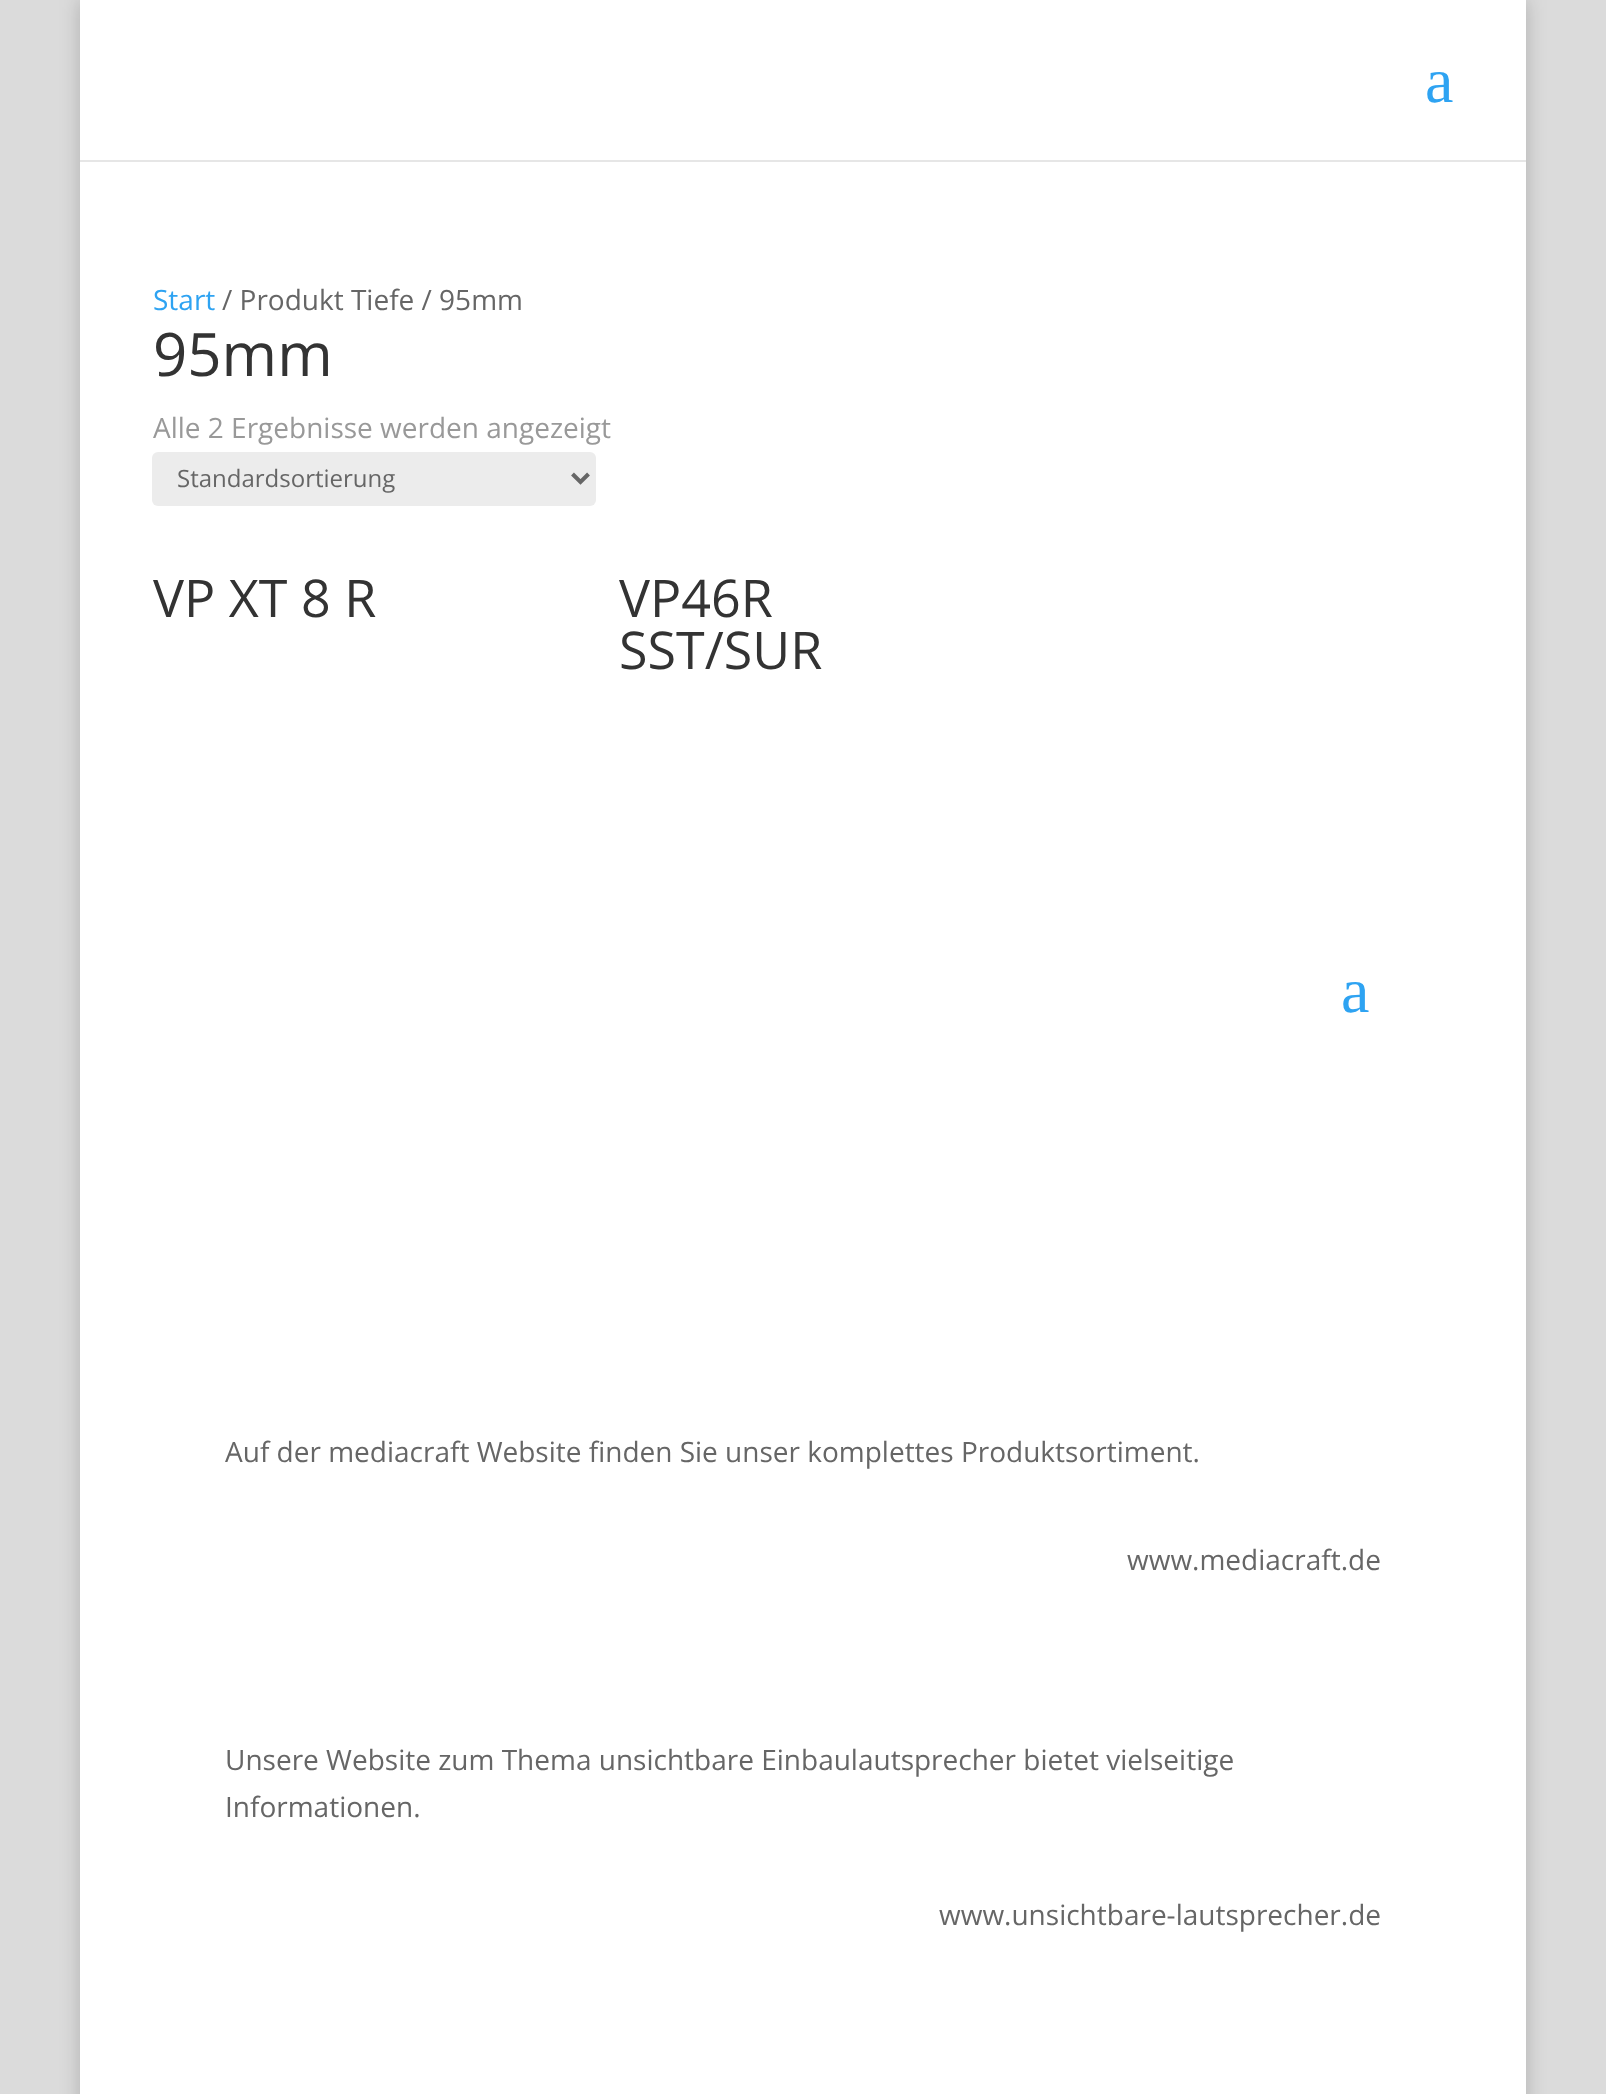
<svg xmlns="http://www.w3.org/2000/svg" width="1606" height="2094">
<rect width="100%" height="100%" fill="#dbdbdb"/>
<rect x="80" width="1446" height="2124" fill="#00000033" filter="blur(10px)"/>
<rect x="80" y="160" width="1446" height="2" fill="#e6e6e6"/>
<rect x="80" width="1446" height="160" fill="#fff"/>
<text x="1425" y="102" style="font-family:Liberation Serif;font-size:64px;fill:#2ea3f2">a</text>
<rect x="80" y="162" width="1446" height="1932" fill="#fff"/>
<text x="153" y="310" style="font-family:Open Sans;font-size:28px;fill:#2ea3f2">Start</text>
<text x="222" y="310" style="font-family:Open Sans;font-size:28px;fill:#666">/ Produkt Tiefe / 95mm</text>
<text x="153" y="376" style="font-family:Open Sans;font-size:60px;fill:#333">95mm</text>
<text x="153" y="438" style="font-family:Open Sans;font-size:28px;fill:#999">Alle 2 Ergebnisse werden angezeigt</text>
<rect x="152" y="452" width="444" height="54" rx="6" fill="#ececec"/>
<path d="M572.5 474l8 8l8-8" fill="none" stroke="#666" stroke-width="4"/>
<text x="177" y="487" style="font-family:Open Sans;font-size:24px;fill:#666">Standardsortierung</text>
<text x="153" y="617" style="font-family:Open Sans;font-size:52px;fill:#333">VP XT 8 R</text>
<text x="619" y="617" style="font-family:Open Sans;font-size:52px;fill:#333">VP46R</text>
<text x="619" y="669" style="font-family:Open Sans;font-size:52px;fill:#333">SST/SUR</text>
<text x="1341" y="1012" style="font-family:Liberation Serif;font-size:64px;fill:#2ea3f2">a</text>
<text x="225" y="1462" style="font-family:Open Sans;font-size:28px;fill:#666">Auf der mediacraft Website finden Sie unser komplettes Produktsortiment.</text>
<text x="1127" y="1570" style="font-family:Open Sans;font-size:28px;fill:#666">www.mediacraft.de</text>
<text x="225" y="1770" style="font-family:Open Sans;font-size:28px;fill:#666">Unsere Website zum Thema unsichtbare Einbaulautsprecher bietet vielseitige</text>
<text x="225" y="1817" style="font-family:Open Sans;font-size:28px;fill:#666">Informationen.</text>
<text x="939" y="1925" style="font-family:Open Sans;font-size:28px;fill:#666">www.unsichtbare-lautsprecher.de</text>
</svg>
